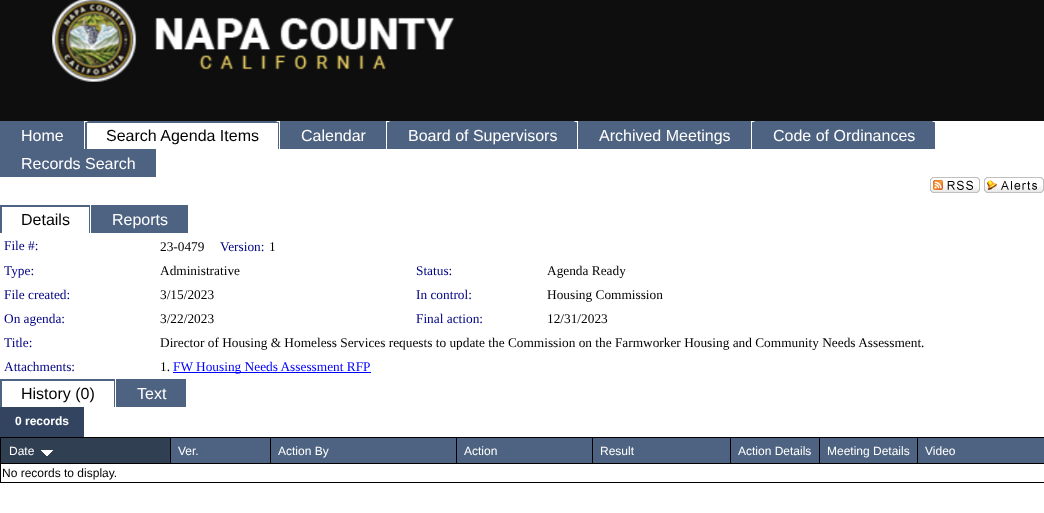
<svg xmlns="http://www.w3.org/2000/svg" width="1044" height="513">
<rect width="100%" height="100%" fill="#fff"/>
<rect width="1044" height="121" fill="#0e0e0e"/>
<image x="52" y="0" width="403" height="82" href="media/1.png"/>
<rect y="121" width="84" height="28" fill="#4e6381"/>
<text x="21" y="141" style="font-family:Liberation Sans;font-size:16px;fill:#fff">Home</text>
<image x="85" y="121" width="194" height="28" href="media/2.png"/>
<rect x="87" y="123" width="191" height="26" fill="#fff"/>
<text x="106" y="141" style="font-family:Liberation Sans;font-size:16px;fill:#000">Search Agenda Items</text>
<rect x="280" y="121" width="106" height="28" fill="#4e6381"/>
<text x="301" y="141" style="font-family:Liberation Sans;font-size:16px;fill:#fff">Calendar</text>
<image x="387" y="121" width="190" height="28" href="media/3.png"/>
<text x="408" y="141" style="font-family:Liberation Sans;font-size:16px;fill:#fff">Board of Supervisors</text>
<rect x="578" y="121" width="173" height="28" fill="#4e6381"/>
<text x="599" y="141" style="font-family:Liberation Sans;font-size:16px;fill:#fff">Archived Meetings</text>
<image x="752" y="121" width="183" height="28" href="media/4.png"/>
<text x="773" y="141" style="font-family:Liberation Sans;font-size:16px;fill:#fff">Code of Ordinances</text>
<rect y="149" width="156" height="28" fill="#4e6381"/>
<text x="21" y="169" style="font-family:Liberation Sans;font-size:16px;fill:#fff">Records Search</text>
<image x="930" y="177" width="50" height="16" href="media/5.png"/>
<image x="984" y="177" width="60" height="16" href="media/6.png"/>
<rect y="205" width="90" height="28" fill="#4e6381"/>
<rect x="2" y="207" width="87" height="26" fill="#fff"/>
<text x="21" y="225" style="font-family:Liberation Sans;font-size:16px;fill:#000">Details</text>
<rect x="91" y="205" width="97" height="28" fill="#4e6381"/>
<text x="112" y="225" style="font-family:Liberation Sans;font-size:16px;fill:#fff">Reports</text>
<text x="4" y="250" style="font-family:Liberation Serif;font-size:13.33px;fill:#000080">File #:</text>
<text x="160" y="251" style="font-family:Liberation Serif;font-size:13.33px;fill:#000">23-0479</text>
<text x="220" y="251" style="font-family:Liberation Serif;font-size:13.33px;fill:#000080">Version:</text>
<text x="269" y="251" style="font-family:Liberation Serif;font-size:13.33px;fill:#000">1</text>
<text x="4" y="275" style="font-family:Liberation Serif;font-size:13.33px;fill:#000080">Type:</text>
<text x="160" y="275" style="font-family:Liberation Serif;font-size:13.33px;fill:#000">Administrative</text>
<text x="416" y="275" style="font-family:Liberation Serif;font-size:13.33px;fill:#000080">Status:</text>
<text x="547" y="275" style="font-family:Liberation Serif;font-size:13.33px;fill:#000">Agenda Ready</text>
<text x="4" y="299" style="font-family:Liberation Serif;font-size:13.33px;fill:#000080">File created:</text>
<text x="160" y="299" style="font-family:Liberation Serif;font-size:13.33px;fill:#000">3/15/2023</text>
<text x="416" y="299" style="font-family:Liberation Serif;font-size:13.33px;fill:#000080">In control:</text>
<text x="547" y="299" style="font-family:Liberation Serif;font-size:13.33px;fill:#000">Housing Commission</text>
<text x="4" y="323" style="font-family:Liberation Serif;font-size:13.33px;fill:#000080">On agenda:</text>
<text x="160" y="323" style="font-family:Liberation Serif;font-size:13.33px;fill:#000">3/22/2023</text>
<text x="416" y="323" style="font-family:Liberation Serif;font-size:13.33px;fill:#000080">Final action:</text>
<text x="547" y="323" style="font-family:Liberation Serif;font-size:13.33px;fill:#000">12/31/2023</text>
<text x="4" y="347" style="font-family:Liberation Serif;font-size:13.33px;fill:#000080">Title:</text>
<text x="160" y="347" style="font-family:Liberation Serif;font-size:13.33px;fill:#000">Director of Housing &amp; Homeless Services requests to update the Commission on the Farmworker Housing and Community Needs Assessment.</text>
<text x="4" y="371" style="font-family:Liberation Serif;font-size:13.33px;fill:#000080">Attachments:</text>
<text x="160" y="371" style="font-family:Liberation Serif;font-size:13.33px;fill:#000">1.</text>
<rect x="173" y="372" width="198" height="1" fill="#00f"/>
<text x="173" y="371" style="font-family:Liberation Serif;font-size:13.33px;fill:#00f">FW Housing Needs Assessment RFP</text>
<rect y="379" width="115" height="28" fill="#4e6381"/>
<rect x="2" y="381" width="112" height="26" fill="#fff"/>
<text x="21" y="399" style="font-family:Liberation Sans;font-size:16px;fill:#000">History (0)</text>
<rect x="116" y="379" width="70" height="28" fill="#4e6381"/>
<text x="137" y="399" style="font-family:Liberation Sans;font-size:16px;fill:#fff">Text</text>
<rect y="407" width="84" height="30" fill="#334460"/>
<text x="15" y="425" style="font-family:Liberation Sans;font-size:12px;font-weight:bold;fill:#fff">0 records</text>
<rect x="0.5" y="437.5" width="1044" height="45" fill="none" stroke="#000"/>
<rect x="1" y="438" width="169" height="25" fill="#313f53"/>
<rect x="1" y="463" width="1043" height="1" fill="#000"/>
<text x="9" y="455" style="font-family:Liberation Sans;font-size:12px;fill:#fff">Date</text>
<image x="41" y="450" width="12" height="6" href="media/7.png"/>
<rect x="171" y="438" width="99" height="25" fill="#4e6381"/>
<rect x="170" y="438" width="1" height="26" fill="#000"/>
<text x="178" y="455" style="font-family:Liberation Sans;font-size:12px;fill:#fff">Ver.</text>
<rect x="271" y="438" width="185" height="25" fill="#4e6381"/>
<rect x="270" y="438" width="1" height="26" fill="#000"/>
<text x="278" y="455" style="font-family:Liberation Sans;font-size:12px;fill:#fff">Action By</text>
<rect x="457" y="438" width="135" height="25" fill="#4e6381"/>
<rect x="456" y="438" width="1" height="26" fill="#000"/>
<text x="464" y="455" style="font-family:Liberation Sans;font-size:12px;fill:#fff">Action</text>
<rect x="593" y="438" width="137" height="25" fill="#4e6381"/>
<rect x="592" y="438" width="1" height="26" fill="#000"/>
<text x="600" y="455" style="font-family:Liberation Sans;font-size:12px;fill:#fff">Result</text>
<rect x="731" y="438" width="88" height="25" fill="#4e6381"/>
<rect x="730" y="438" width="1" height="26" fill="#000"/>
<text x="738" y="455" style="font-family:Liberation Sans;font-size:12px;fill:#fff">Action Details</text>
<rect x="820" y="438" width="97" height="25" fill="#4e6381"/>
<rect x="819" y="438" width="1" height="26" fill="#000"/>
<text x="827" y="455" style="font-family:Liberation Sans;font-size:12px;fill:#fff">Meeting Details</text>
<rect x="918" y="438" width="126" height="25" fill="#4e6381"/>
<rect x="917" y="438" width="1" height="26" fill="#000"/>
<text x="925" y="455" style="font-family:Liberation Sans;font-size:12px;fill:#fff">Video</text>
<text x="2" y="477" style="font-family:Liberation Sans;font-size:12px;fill:#000">No records to display.</text>
</svg>
